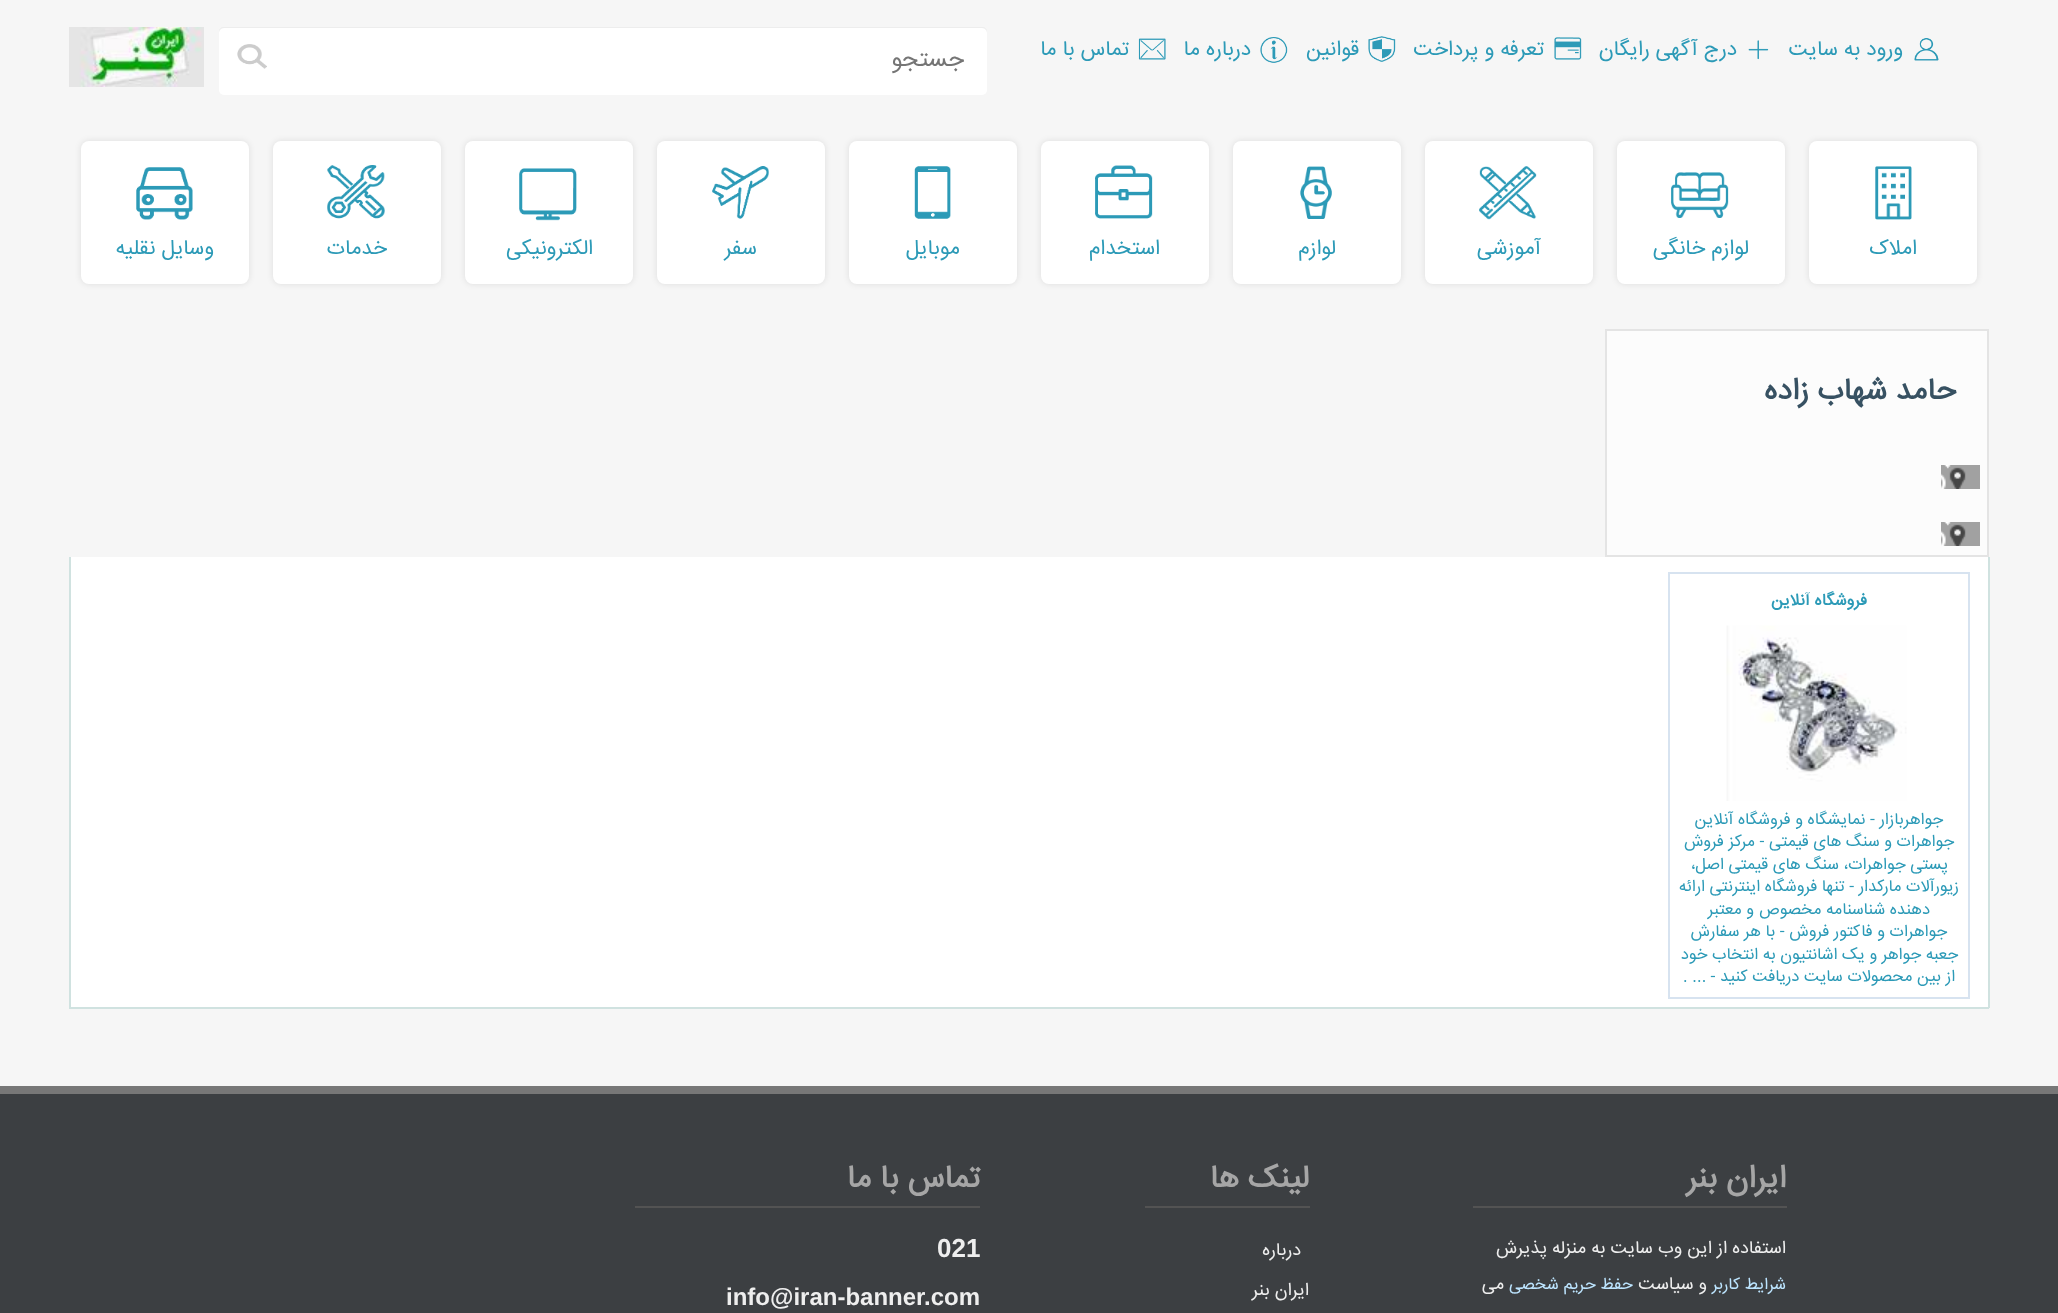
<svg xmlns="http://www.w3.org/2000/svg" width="2058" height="1313">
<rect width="100%" height="100%" fill="#f6f6f6"/>
<image x="1914" y="38" width="25" height="23" href="media/1.png"/>
<text x="1903" y="55" style="font-family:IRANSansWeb;font-size:21px;direction:rtl;fill:#2c9ab7">ورود به سایت</text>
<image x="1748" y="40" width="21" height="20" href="media/2.png"/>
<text x="1737" y="55" style="font-family:IRANSansWeb;font-size:21px;direction:rtl;fill:#2c9ab7">درج آگهی رایگان</text>
<image x="1554" y="37" width="28" height="23" href="media/3.png"/>
<text x="1544" y="55" style="font-family:IRANSansWeb;font-size:21px;direction:rtl;fill:#2c9ab7">تعرفه و پرداخت</text>
<image x="1368" y="36" width="28" height="26" href="media/4.png"/>
<text x="1359" y="55" style="font-family:IRANSansWeb;font-size:21px;direction:rtl;fill:#2c9ab7">قوانین</text>
<image x="1260" y="37" width="28" height="26" href="media/5.png"/>
<text x="1251" y="55" style="font-family:IRANSansWeb;font-size:21px;direction:rtl;fill:#2c9ab7">درباره ما</text>
<image x="1138" y="38" width="28" height="22" href="media/6.png"/>
<text x="1129" y="55" style="font-family:IRANSansWeb;font-size:21px;direction:rtl;fill:#2c9ab7">تماس با ما</text>
<rect x="219" y="27" width="768" height="68" rx="5" fill="#fff"/>
<image x="237" y="44" width="30" height="25" href="media/7.png"/>
<path d="M224 28h758c3 0 5 3 5 5v-1c0-3-2-5-5-5h-758c-3 0-5 2-5 5v1c0-2 2-5 5-5z" fill="#00000012"/>
<text x="964" y="66" style="font-family:IRANSansWeb;font-size:24px;direction:rtl;fill:#757575">جستجو</text>
<image x="69" y="27" width="135" height="60" href="media/8.png"/>
<rect x="1809" y="141" width="168" height="143" rx="8" fill="#0000001a" filter="blur(3px)"/>
<rect x="1809" y="141" width="168" height="143" rx="8" fill="#fff"/>
<image x="1875" y="166" width="37" height="54" href="media/9.png"/>
<text x="1917" y="254" style="font-family:IRANSansWeb;font-size:21px;direction:rtl;fill:#2c9ab7">املاک</text>
<rect x="1617" y="141" width="168" height="143" rx="8" fill="#0000001a" filter="blur(3px)"/>
<rect x="1617" y="141" width="168" height="143" rx="8" fill="#fff"/>
<image x="1671" y="172" width="58" height="46" href="media/10.png"/>
<text x="1749" y="254" style="font-family:IRANSansWeb;font-size:21px;direction:rtl;fill:#2c9ab7">لوازم خانگی</text>
<rect x="1425" y="141" width="168" height="143" rx="8" fill="#0000001a" filter="blur(3px)"/>
<rect x="1425" y="141" width="168" height="143" rx="8" fill="#fff"/>
<image x="1479" y="166" width="58" height="54" href="media/11.png"/>
<text x="1541" y="254" style="font-family:IRANSansWeb;font-size:21px;direction:rtl;fill:#2c9ab7">آموزشی</text>
<rect x="1233" y="141" width="168" height="143" rx="8" fill="#0000001a" filter="blur(3px)"/>
<rect x="1233" y="141" width="168" height="143" rx="8" fill="#fff"/>
<image x="1300" y="166" width="32" height="53" href="media/12.png"/>
<text x="1336" y="254" style="font-family:IRANSansWeb;font-size:21px;direction:rtl;fill:#2c9ab7">لوازم</text>
<rect x="1041" y="141" width="168" height="143" rx="8" fill="#0000001a" filter="blur(3px)"/>
<rect x="1041" y="141" width="168" height="143" rx="8" fill="#fff"/>
<image x="1095" y="165" width="58" height="54" href="media/13.png"/>
<text x="1160" y="254" style="font-family:IRANSansWeb;font-size:21px;direction:rtl;fill:#2c9ab7">استخدام</text>
<rect x="849" y="141" width="168" height="143" rx="8" fill="#0000001a" filter="blur(3px)"/>
<rect x="849" y="141" width="168" height="143" rx="8" fill="#fff"/>
<image x="914" y="166" width="37" height="53" href="media/14.png"/>
<text x="960" y="254" style="font-family:IRANSansWeb;font-size:21px;direction:rtl;fill:#2c9ab7">موبایل</text>
<rect x="657" y="141" width="168" height="143" rx="8" fill="#0000001a" filter="blur(3px)"/>
<rect x="657" y="141" width="168" height="143" rx="8" fill="#fff"/>
<image x="712" y="166" width="57" height="53" href="media/15.png"/>
<text x="757" y="254" style="font-family:IRANSansWeb;font-size:21px;direction:rtl;fill:#2c9ab7">سفر</text>
<rect x="465" y="141" width="168" height="143" rx="8" fill="#0000001a" filter="blur(3px)"/>
<rect x="465" y="141" width="168" height="143" rx="8" fill="#fff"/>
<image x="519" y="168" width="58" height="53" href="media/16.png"/>
<text x="593" y="254" style="font-family:IRANSansWeb;font-size:21px;direction:rtl;fill:#2c9ab7">الکترونیکی</text>
<rect x="273" y="141" width="168" height="143" rx="8" fill="#0000001a" filter="blur(3px)"/>
<rect x="273" y="141" width="168" height="143" rx="8" fill="#fff"/>
<image x="327" y="165" width="58" height="54" href="media/17.png"/>
<text x="387" y="254" style="font-family:IRANSansWeb;font-size:21px;direction:rtl;fill:#2c9ab7">خدمات</text>
<rect x="81" y="141" width="168" height="143" rx="8" fill="#0000001a" filter="blur(3px)"/>
<rect x="81" y="141" width="168" height="143" rx="8" fill="#fff"/>
<image x="136" y="167" width="57" height="53" href="media/18.png"/>
<text x="214" y="254" style="font-family:IRANSansWeb;font-size:21px;direction:rtl;fill:#2c9ab7">وسایل نقلیه</text>
<rect x="1606" y="330" width="382" height="226" fill="#fcfcfc" stroke="#e4e4e4" stroke-width="2"/>
<text x="1956" y="399" style="font-family:IRANSansWeb;font-size:30px;font-weight:bold;direction:rtl;fill:#375162">حامد شهاب زاده</text>
<rect x="1941" y="465" width="39" height="24" fill="#a1a1a1"/>
<image x="1941" y="465" width="25" height="24" href="media/19.png"/>
<rect x="1941" y="522" width="39" height="24" fill="#a1a1a1"/>
<image x="1941" y="522" width="25" height="24" href="media/19.png"/>
<rect x="71" y="557" width="1917" height="450" fill="#fff"/>
<rect x="1988" y="557" width="2" height="451" fill="#d0e2e0"/>
<rect x="69" y="1007" width="1920" height="2" fill="#d0e2e0"/>
<rect x="69" y="557" width="2" height="451" fill="#d0e2e0"/>
<rect x="1669" y="573" width="300" height="425" fill="none" stroke="#d7e3f0" stroke-width="2"/>
<text x="1867" y="605" style="font-family:IRANSansWeb;font-size:16.5px;font-weight:bold;direction:rtl;fill:#2c9ab7">فروشگاه آنلاین</text>
<image x="1726" y="625" width="181" height="176" href="media/20.png"/>
<text x="1943" y="824" style="font-family:IRANSansWeb;font-size:16.5px;direction:rtl;fill:#2c9ab7">جواهربازار - نمایشگاه و فروشگاه آنلاین</text>
<text x="1954" y="846" style="font-family:IRANSansWeb;font-size:16.5px;direction:rtl;fill:#2c9ab7">جواهرات و سنگ های قیمتی - مرکز فروش</text>
<text x="1948" y="869" style="font-family:IRANSansWeb;font-size:16.5px;direction:rtl;fill:#2c9ab7">پستی جواهرات، سنگ های قیمتی اصل،</text>
<text x="1959" y="891" style="font-family:IRANSansWeb;font-size:16.5px;direction:rtl;fill:#2c9ab7">زیورآلات مارکدار - تنها فروشگاه اینترنتی ارائه</text>
<text x="1930" y="914" style="font-family:IRANSansWeb;font-size:16.5px;direction:rtl;fill:#2c9ab7">دهنده شناسنامه مخصوص و معتبر</text>
<text x="1947" y="936" style="font-family:IRANSansWeb;font-size:16.5px;direction:rtl;fill:#2c9ab7">جواهرات و فاکتور فروش - با هر سفارش</text>
<text x="1958" y="959" style="font-family:IRANSansWeb;font-size:16.5px;direction:rtl;fill:#2c9ab7">جعبه جواهر و یک اشانتیون به انتخاب خود</text>
<text x="1955" y="981" style="font-family:IRANSansWeb;font-size:16.5px;direction:rtl;fill:#2c9ab7">از بین محصولات سایت دریافت کنید -</text>
<text x="1683" y="981" style="font-family:IRANSansWeb;font-size:16.5px;fill:#2c9ab7">. ...</text>
<rect y="1094" width="2058" height="219" fill="#3c3f42"/>
<rect y="1086" width="2058" height="8" fill="#777"/>
<rect x="1473" y="1206" width="314" height="2" fill="#535353"/>
<text x="1786" y="1187" style="font-family:IRANSansWeb;font-size:31.5px;font-weight:bold;direction:rtl;fill:#a6a6a6">ایران بنر</text>
<text x="1786" y="1253" style="font-family:IRANSansWeb;font-size:18px;direction:rtl;fill:#eee">استفاده از این وب سایت به منزله پذیرش</text>
<text x="1786" y="1289" style="font-family:IRANSansWeb;font-size:16.5px;direction:rtl;fill:#bde5ff">شرایط کاربر</text>
<text x="1707" y="1289" style="font-family:IRANSansWeb;font-size:18px;direction:rtl;fill:#eee">و سیاست</text>
<text x="1633" y="1289" style="font-family:IRANSansWeb;font-size:16.5px;direction:rtl;fill:#bde5ff">حفظ حریم شخصی</text>
<text x="1504" y="1289" style="font-family:IRANSansWeb;font-size:18px;direction:rtl;fill:#eee">می</text>
<rect x="1145" y="1206" width="165" height="2" fill="#535353"/>
<text x="1309" y="1187" style="font-family:IRANSansWeb;font-size:31.5px;font-weight:bold;direction:rtl;fill:#a6a6a6">لینک ها</text>
<text x="1301" y="1255" style="font-family:IRANSansWeb;font-size:18px;direction:rtl;fill:#eee">درباره</text>
<text x="1309" y="1295" style="font-family:IRANSansWeb;font-size:18px;direction:rtl;fill:#eee">ایران بنر</text>
<rect x="635" y="1206" width="345" height="2" fill="#535353"/>
<text x="980" y="1187" style="font-family:IRANSansWeb;font-size:31.5px;font-weight:bold;direction:rtl;fill:#a6a6a6">تماس با ما</text>
<text x="937" y="1257" style="font-family:Liberation Sans;font-size:26px;font-weight:bold;fill:#eee">021</text>
<text x="726" y="1305" style="font-family:Liberation Sans;font-size:24px;font-weight:bold;fill:#eee">info@iran-banner.com</text>
</svg>
